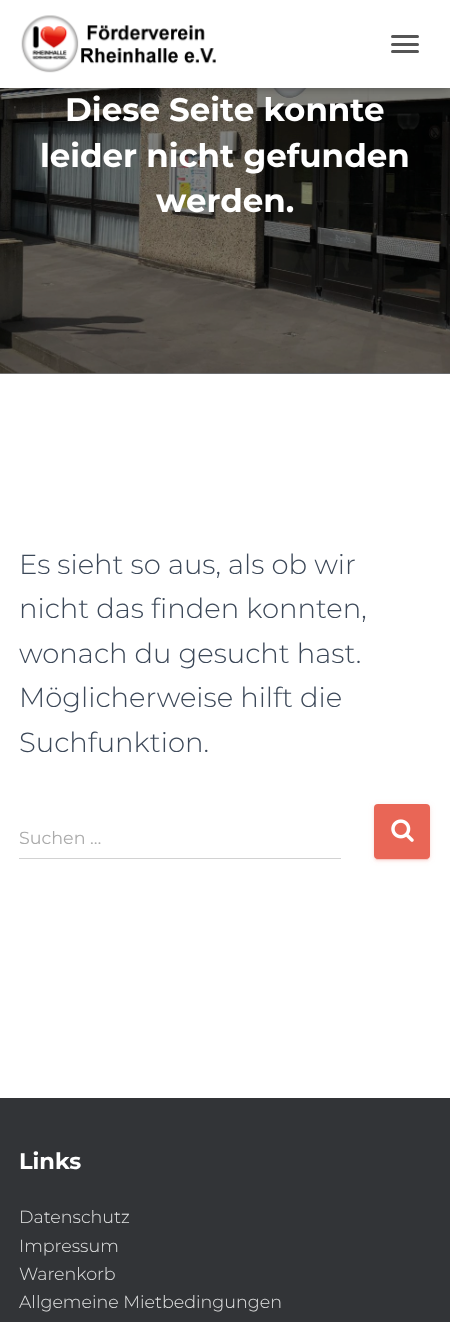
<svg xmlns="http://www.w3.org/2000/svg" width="450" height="1322">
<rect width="100%" height="100%" fill="#737373"/>
<image x="0" y="88" width="450" height="286" href="media/2.png"/>
<rect x="3" y="8" width="445" height="82" fill="#0000001a" filter="blur(3px)"/>
<rect y="1" width="450" height="88" fill="#0000001f" filter="blur(6px)"/>
<rect x="8" y="9" width="435" height="72" fill="#0000006b" filter="blur(6px)"/>
<rect width="450" height="88" fill="#fff"/>
<image x="21" y="15" width="195" height="58" href="media/1.png"/>
<rect x="391" y="35" width="28" height="3" rx="1.5" fill="#555"/>
<rect x="391" y="43" width="28" height="3" rx="1.5" fill="#555"/>
<rect x="391" y="50" width="28" height="3" rx="1.5" fill="#555"/>
<text x="65" y="121" style="font-family:Montserrat;font-size:32.5px;font-weight:bold;fill:#fff">Diese Seite konnte</text>
<text x="40" y="167" style="font-family:Montserrat;font-size:32.5px;font-weight:bold;fill:#fff">leider nicht gefunden</text>
<text x="156" y="212" style="font-family:Montserrat;font-size:32.5px;font-weight:bold;fill:#fff">werden.</text>
<rect y="374" width="450" height="724" fill="#fff"/>
<text x="19" y="574" style="font-family:Montserrat;font-size:27.5px;font-weight:300;fill:#3c4858">Es sieht so aus, als ob wir</text>
<text x="19" y="618" style="font-family:Montserrat;font-size:27.5px;font-weight:300;fill:#3c4858">nicht das finden konnten,</text>
<text x="19" y="663" style="font-family:Montserrat;font-size:27.5px;font-weight:300;fill:#3c4858">wonach du gesucht hast.</text>
<text x="19" y="707" style="font-family:Montserrat;font-size:27.5px;font-weight:300;fill:#3c4858">Möglicherweise hilft die</text>
<text x="19" y="752" style="font-family:Montserrat;font-size:27.5px;font-weight:300;fill:#3c4858">Suchfunktion.</text>
<text x="19" y="844" style="font-family:Montserrat;font-size:17.5px;fill:#aaa">Suchen …</text>
<rect x="19" y="858" width="322" height="1" fill="#d2d2d2"/>
<rect x="374" y="805" width="56" height="55" rx="4" fill="#e966561f" filter="blur(3px)"/>
<rect x="376" y="810" width="52" height="50" rx="1" fill="#e9665633" filter="blur(0.5px)"/>
<rect x="374" y="806" width="56" height="55" rx="4" fill="#e9665624" filter="blur(1px)"/>
<rect x="374" y="804" width="56" height="55" rx="4" fill="#e96656"/>
<image x="391" y="819" width="23" height="23" href="media/3.png"/>
<rect y="1098" width="450" height="224" fill="#323437"/>
<text x="19" y="1169" style="font-family:Montserrat;font-size:22.5px;font-weight:bold;fill:#fff">Links</text>
<text x="19" y="1223" style="font-family:Montserrat;font-size:17.5px;font-weight:300;fill:#e2e3e3">Datenschutz</text>
<text x="19" y="1252" style="font-family:Montserrat;font-size:17.5px;font-weight:300;fill:#e2e3e3">Impressum</text>
<text x="19" y="1280" style="font-family:Montserrat;font-size:17.5px;font-weight:300;fill:#e2e3e3">Warenkorb</text>
<text x="19" y="1308" style="font-family:Montserrat;font-size:17.5px;font-weight:300;fill:#e2e3e3">Allgemeine Mietbedingungen</text>
</svg>
